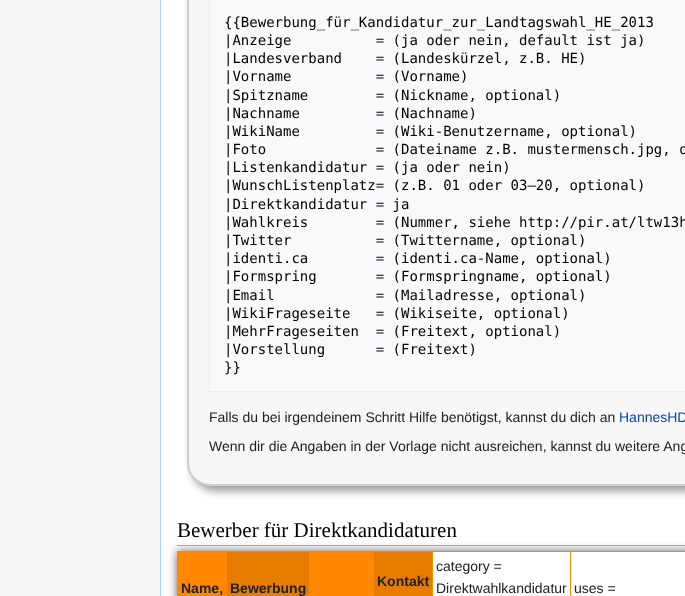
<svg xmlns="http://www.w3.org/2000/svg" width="685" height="596">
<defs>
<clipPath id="clip1"><path d="M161 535h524v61h-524zm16 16h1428v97h-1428z" clip-rule="evenodd"/></clipPath>
</defs>
<rect width="100%" height="100%" fill="#f6f6f6"/>
<rect x="161" width="524" height="596" fill="#fff"/>
<rect x="160" width="1" height="596" fill="#a7d7f9"/>
<rect x="192" y="-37" width="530" height="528" rx="23" fill="#999" filter="blur(4.5px)"/>
<rect x="188" y="-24" width="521" height="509" rx="22" fill="#f7f7f7" stroke="#ccc" stroke-width="2"/>
<rect x="209.5" y="-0.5" width="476" height="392" fill="#f8f9fa" stroke="#eaecf0"/>
<text x="224" y="27" style="font-family:DejaVu Sans Mono;font-size:14px;fill:#000">{{Bewerbung_für_Kandidatur_zur_Landtagswahl_HE_2013</text>
<text x="224" y="45" style="font-family:DejaVu Sans Mono;font-size:14px;fill:#000" xml:space="preserve">|Anzeige          = (ja oder nein, default ist ja)</text>
<text x="224" y="63" style="font-family:DejaVu Sans Mono;font-size:14px;fill:#000" xml:space="preserve">|Landesverband    = (Landeskürzel, z.B. HE)</text>
<text x="224" y="81" style="font-family:DejaVu Sans Mono;font-size:14px;fill:#000" xml:space="preserve">|Vorname          = (Vorname)</text>
<text x="224" y="100" style="font-family:DejaVu Sans Mono;font-size:14px;fill:#000" xml:space="preserve">|Spitzname        = (Nickname, optional)</text>
<text x="224" y="118" style="font-family:DejaVu Sans Mono;font-size:14px;fill:#000" xml:space="preserve">|Nachname         = (Nachname)</text>
<text x="224" y="136" style="font-family:DejaVu Sans Mono;font-size:14px;fill:#000" xml:space="preserve">|WikiName         = (Wiki-Benutzername, optional)</text>
<text x="224" y="154" style="font-family:DejaVu Sans Mono;font-size:14px;fill:#000" xml:space="preserve">|Foto             = (Dateiname z.B. mustermensch.jpg, o</text>
<text x="224" y="172" style="font-family:DejaVu Sans Mono;font-size:14px;fill:#000">|Listenkandidatur = (ja oder nein)</text>
<text x="224" y="190" style="font-family:DejaVu Sans Mono;font-size:14px;fill:#000">|WunschListenplatz= (z.B. 01 oder 03–20, optional)</text>
<text x="224" y="209" style="font-family:DejaVu Sans Mono;font-size:14px;fill:#000">|Direktkandidatur = ja</text>
<text x="224" y="227" style="font-family:DejaVu Sans Mono;font-size:14px;fill:#000" xml:space="preserve">|Wahlkreis        = (Nummer, siehe http://pir.at/ltw13h</text>
<text x="224" y="245" style="font-family:DejaVu Sans Mono;font-size:14px;fill:#000" xml:space="preserve">|Twitter          = (Twittername, optional)</text>
<text x="224" y="263" style="font-family:DejaVu Sans Mono;font-size:14px;fill:#000" xml:space="preserve">|identi.ca        = (identi.ca-Name, optional)</text>
<text x="224" y="281" style="font-family:DejaVu Sans Mono;font-size:14px;fill:#000" xml:space="preserve">|Formspring       = (Formspringname, optional)</text>
<text x="224" y="300" style="font-family:DejaVu Sans Mono;font-size:14px;fill:#000" xml:space="preserve">|Email            = (Mailadresse, optional)</text>
<text x="224" y="318" style="font-family:DejaVu Sans Mono;font-size:14px;fill:#000" xml:space="preserve">|WikiFrageseite   = (Wikiseite, optional)</text>
<text x="224" y="336" style="font-family:DejaVu Sans Mono;font-size:14px;fill:#000" xml:space="preserve">|MehrFrageseiten  = (Freitext, optional)</text>
<text x="224" y="354" style="font-family:DejaVu Sans Mono;font-size:14px;fill:#000" xml:space="preserve">|Vorstellung      = (Freitext)</text>
<text x="224" y="372" style="font-family:DejaVu Sans Mono;font-size:14px;fill:#000">}}</text>
<text x="209" y="422" style="font-family:Liberation Sans;font-size:14px;fill:#202122">Falls du bei irgendeinem Schritt Hilfe benötigst, kannst du dich an</text>
<text x="619" y="422" style="font-family:Liberation Sans;font-size:14px;fill:#0645ad">HannesHD</text>
<text x="209" y="451" style="font-family:Liberation Sans;font-size:14px;fill:#202122">Wenn dir die Angaben in der Vorlage nicht ausreichen, kannst du weitere Ang</text>
<g clip-path="url(#clip1)">
<rect x="177" y="551" width="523" height="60" fill="#666" filter="blur(5px)"/>
</g>
<rect x="177" y="545" width="508" height="1" fill="#a2a9b1"/>
<text x="177" y="537" style="font-family:Liberation Serif;font-size:21px;fill:#000">Bewerber für Direktkandidaturen</text>
<rect x="178" y="552" width="49" height="44" fill="#f80"/>
<rect x="570" y="551" width="115" height="1" fill="#f80"/>
<rect x="570" y="551" width="1" height="45" fill="#f80"/>
<rect x="432" y="551" width="139" height="1" fill="#f80"/>
<rect x="432" y="551" width="1" height="45" fill="#f80"/>
<rect x="309" y="551" width="124" height="1" fill="#f80"/>
<rect x="309" y="551" width="1" height="45" fill="#f80"/>
<rect x="177" y="551" width="133" height="1" fill="#f80"/>
<rect x="177" y="551" width="1" height="45" fill="#f80"/>
<text x="181" y="593" style="font-family:Liberation Sans;font-size:14px;font-weight:bold;fill:#202122">Name,</text>
<rect x="227" y="552" width="82" height="44" fill="#e67d00"/>
<text x="230" y="593" style="font-family:Liberation Sans;font-size:14px;font-weight:bold;fill:#202122">Bewerbung</text>
<rect x="310" y="552" width="64" height="44" fill="#f80"/>
<rect x="374" y="552" width="58" height="44" fill="#e67d00"/>
<text x="377" y="586" style="font-family:Liberation Sans;font-size:14px;font-weight:bold;fill:#202122">Kontakt</text>
<text x="436" y="571" style="font-family:Liberation Sans;font-size:14px;fill:#202122">category =</text>
<text x="436" y="593" style="font-family:Liberation Sans;font-size:14px;fill:#202122">Direktwahlkandidatur</text>
<text x="574" y="593" style="font-family:Liberation Sans;font-size:14px;fill:#202122">uses =</text>
</svg>
